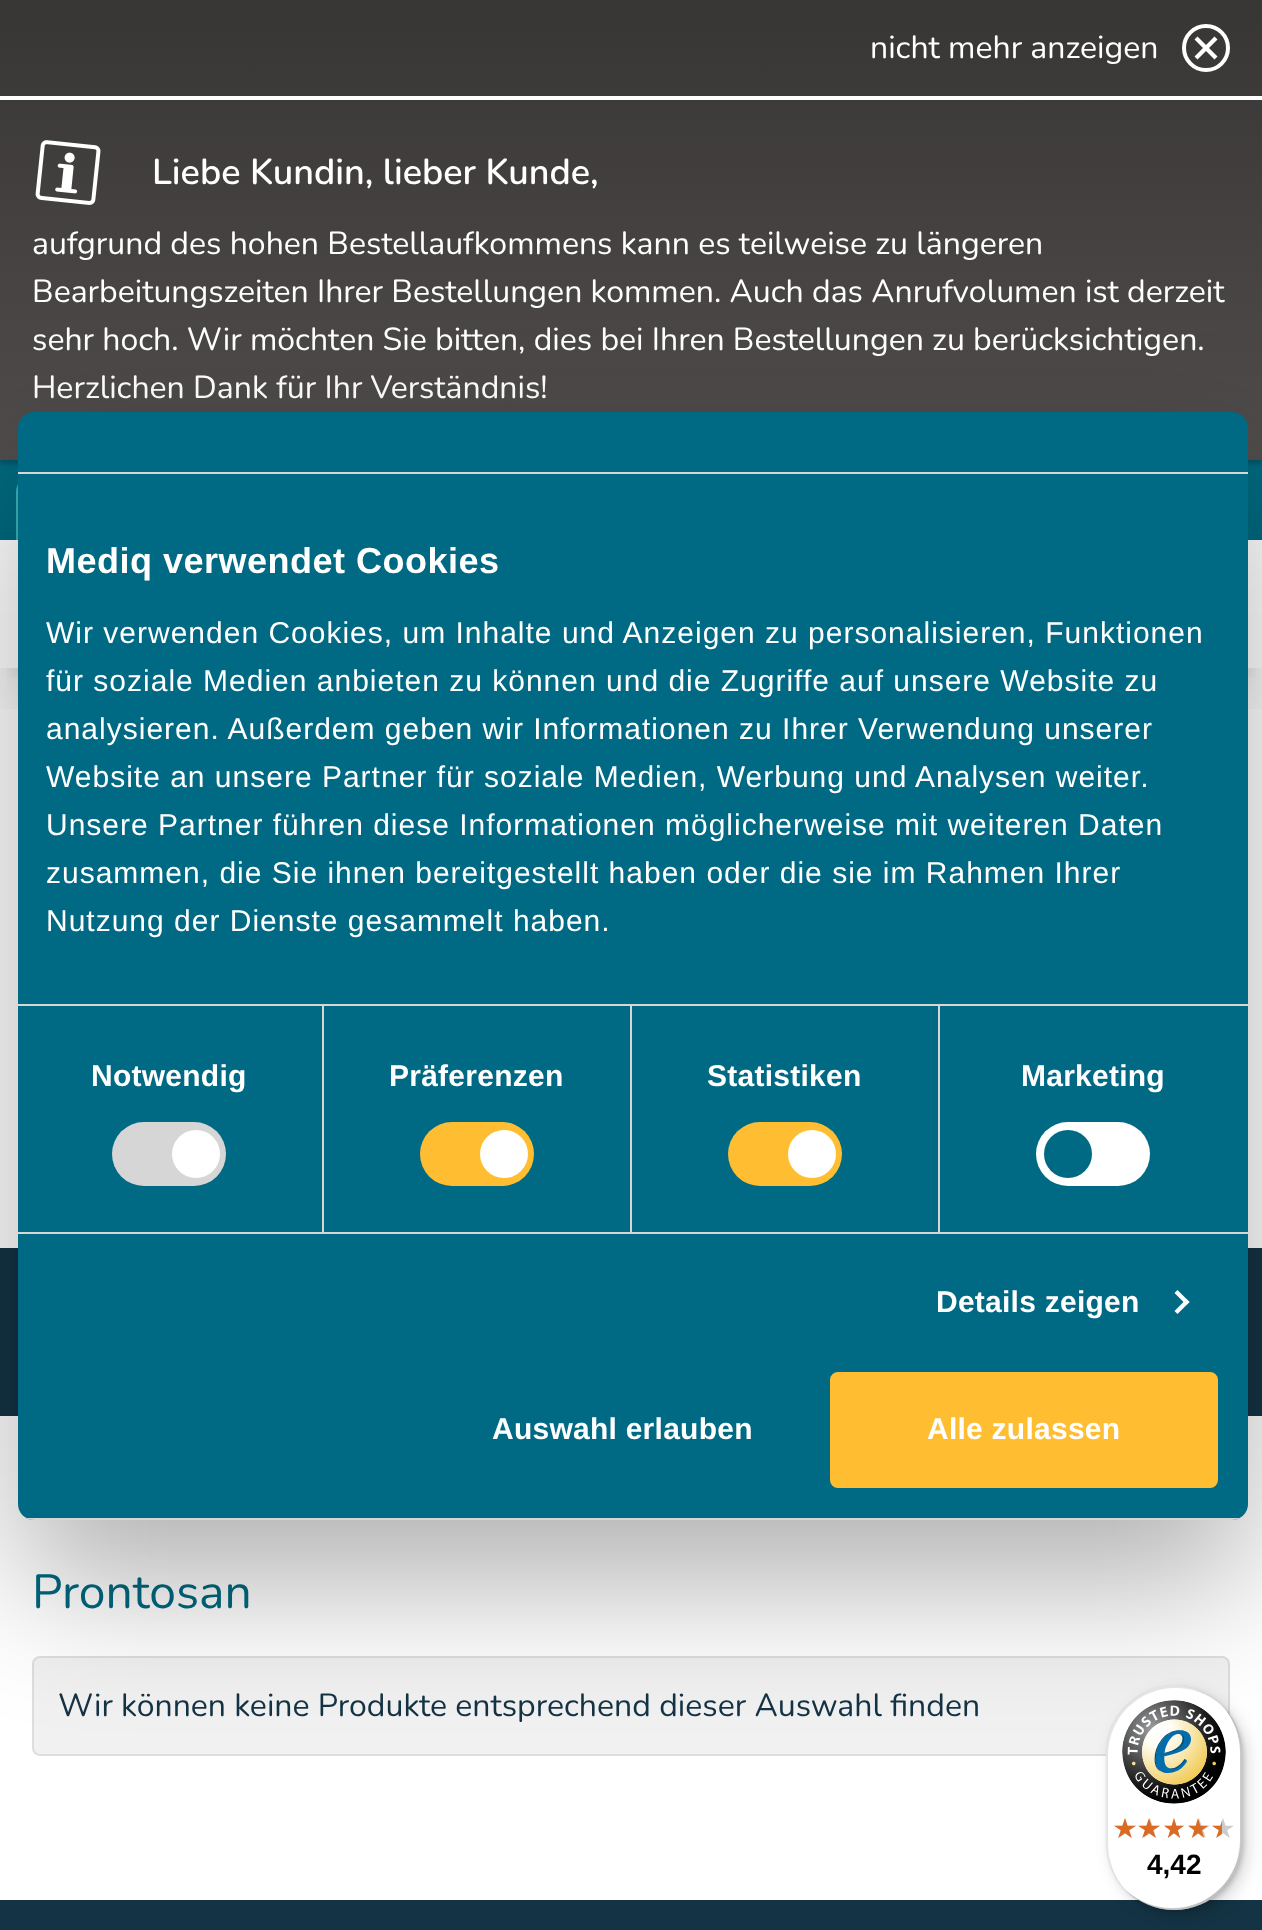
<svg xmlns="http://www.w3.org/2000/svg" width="1262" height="1930">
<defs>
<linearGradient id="g1" gradientUnits="userSpaceOnUse" x1="631" y1="0" x2="631" y2="460"><stop offset="0" stop-color="#383535"/><stop offset="1" stop-color="#514d4d"/></linearGradient>
<clipPath id="clip1"><rect x="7" y="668" width="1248" height="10"/></clipPath>
<clipPath id="clip2"><rect x="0" y="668" width="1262" height="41"/></clipPath>
<clipPath id="clip3"><rect x="18" y="412" width="1230" height="1108" rx="16"/></clipPath>
</defs>
<rect width="100%" height="100%" fill="#fff"/>
<rect y="460" width="1262" height="80" fill="#00697f"/>
<rect y="4" width="1262" height="460" fill="#00000033" filter="blur(2px)"/>
<rect width="1262" height="460" fill="url(#g1)"/>
<rect y="96" width="1262" height="4" fill="#fff"/>
<text x="870" y="58" style="font-family:Nunito;font-size:32px;fill:#fff">nicht mehr anzeigen</text>
<circle cx="1206" cy="48" r="22" fill="none" stroke="#fff" stroke-width="4"/>
<path d="M1197.5 36.5l20 20l-3 3l-20-20z" fill="#fff"/>
<path d="M1194.5 56.5l20-20l3 3l-20 20z" fill="#fff"/>
<image x="35" y="140" width="66" height="65" href="media/1.png"/>
<text x="152" y="184" style="font-family:Nunito;font-size:36px;font-weight:600;fill:#fff">Liebe Kundin, lieber Kunde,</text>
<text x="32" y="254" style="font-family:Nunito;font-size:32px;fill:#fff">aufgrund des hohen Bestellaufkommens kann es teilweise zu längeren</text>
<text x="32" y="302" style="font-family:Nunito;font-size:32px;fill:#fff">Bearbeitungszeiten Ihrer Bestellungen kommen. Auch das Anrufvolumen ist derzeit</text>
<text x="32" y="350" style="font-family:Nunito;font-size:32px;fill:#fff">sehr hoch. Wir möchten Sie bitten, dies bei Ihren Bestellungen zu berücksichtigen.</text>
<text x="32" y="398" style="font-family:Nunito;font-size:32px;fill:#fff">Herzlichen Dank für Ihr Verständnis!</text>
<path d="M32 476h376v64h-392v-48c0-9 7-16 16-16z" fill="#39b2b9"/>
<g clip-path="url(#clip1)">
<rect x="12" y="568" width="1238" height="104" fill="#0000001a" filter="blur(10px)"/>
</g>
<g clip-path="url(#clip2)">
<rect x="10" y="590" width="1242" height="108" fill="#0000001a" filter="blur(25px)"/>
</g>
<rect y="1248" width="1262" height="168" fill="#143344"/>
<text x="32" y="1608" style="font-family:Nunito;font-size:48px;fill:#00697f">Prontosan</text>
<rect x="33" y="1657" width="1196" height="98" rx="7" fill="#f1f1f1" stroke="#dedede" stroke-width="2"/>
<text x="58" y="1716" style="font-family:Nunito;font-size:32px;fill:#143344">Wir können keine Produkte entsprechend dieser Auswahl finden</text>
<rect y="1900" width="1262" height="30" fill="#143344"/>
<rect x="18" y="476" width="1230" height="1108" rx="16" fill="#0000004d" filter="blur(68px)"/>
<rect x="18" y="412" width="1230" height="1108" rx="16" fill="#006983"/>
<rect x="18" y="472" width="1230" height="2" fill="#d6d6d6"/>
<rect x="18" y="1004" width="1230" height="2" fill="#d6d6d6"/>
<text x="46" y="573" style="font-family:Liberation Sans;font-size:36px;font-weight:bold;letter-spacing:0.5px;fill:#fff">Mediq verwendet Cookies</text>
<text x="46" y="643" style="font-family:Liberation Sans;font-size:30px;letter-spacing:1px;fill:#fff">Wir verwenden Cookies, um Inhalte und Anzeigen zu personalisieren, Funktionen</text>
<text x="46" y="691" style="font-family:Liberation Sans;font-size:30px;letter-spacing:1px;fill:#fff">für soziale Medien anbieten zu können und die Zugriffe auf unsere Website zu</text>
<text x="46" y="739" style="font-family:Liberation Sans;font-size:30px;letter-spacing:1px;fill:#fff">analysieren. Außerdem geben wir Informationen zu Ihrer Verwendung unserer</text>
<text x="46" y="787" style="font-family:Liberation Sans;font-size:30px;letter-spacing:1px;fill:#fff">Website an unsere Partner für soziale Medien, Werbung und Analysen weiter.</text>
<text x="46" y="835" style="font-family:Liberation Sans;font-size:30px;letter-spacing:1px;fill:#fff">Unsere Partner führen diese Informationen möglicherweise mit weiteren Daten</text>
<text x="46" y="883" style="font-family:Liberation Sans;font-size:30px;letter-spacing:1px;fill:#fff">zusammen, die Sie ihnen bereitgestellt haben oder die sie im Rahmen Ihrer</text>
<text x="46" y="931" style="font-family:Liberation Sans;font-size:30px;letter-spacing:1px;fill:#fff">Nutzung der Dienste gesammelt haben.</text>
<rect x="18" y="1232" width="1230" height="2" fill="#d6d6d6"/>
<rect x="322" y="1006" width="2" height="226" fill="#d6d6d6"/>
<text x="91" y="1086" style="font-family:Liberation Sans;font-size:30px;font-weight:bold;letter-spacing:0.25px;fill:#fff">Notwendig</text>
<rect x="112" y="1122" width="114" height="64" rx="32" fill="#d6d6d6"/>
<circle cx="196" cy="1154" r="24" fill="#fff"/>
<rect x="630" y="1006" width="2" height="226" fill="#d6d6d6"/>
<text x="389" y="1086" style="font-family:Liberation Sans;font-size:30px;font-weight:bold;letter-spacing:0.25px;fill:#fff">Präferenzen</text>
<rect x="420" y="1122" width="114" height="64" rx="32" fill="#ffbe32"/>
<circle cx="504" cy="1154" r="24" fill="#fff"/>
<rect x="938" y="1006" width="2" height="226" fill="#d6d6d6"/>
<text x="707" y="1086" style="font-family:Liberation Sans;font-size:30px;font-weight:bold;letter-spacing:0.25px;fill:#fff">Statistiken</text>
<rect x="728" y="1122" width="114" height="64" rx="32" fill="#ffbe32"/>
<circle cx="812" cy="1154" r="24" fill="#fff"/>
<text x="1021" y="1086" style="font-family:Liberation Sans;font-size:30px;font-weight:bold;letter-spacing:0.25px;fill:#fff">Marketing</text>
<rect x="1036" y="1122" width="114" height="64" rx="32" fill="#fff"/>
<circle cx="1068" cy="1154" r="24" fill="#006983"/>
<text x="936" y="1312" style="font-family:Liberation Sans;font-size:30px;font-weight:bold;letter-spacing:0.25px;fill:#fff">Details zeigen</text>
<path d="M1177.5 1290l12 12l-3 3l-12-12z" fill="#fff"/>
<path d="M1186.5 1299l3 3l-12 12l-3-3z" fill="#fff"/>
<g clip-path="url(#clip3)">
<rect x="18" y="1518" width="1230" height="2" fill="#d6d6d6"/>
</g>
<text x="492" y="1439" style="font-family:Liberation Sans;font-size:30px;font-weight:bold;letter-spacing:0.25px;fill:#fff">Auswahl erlauben</text>
<rect x="832" y="1374" width="384" height="112" rx="6" fill="#ffbe32" stroke="#ffbe32" stroke-width="4"/>
<text x="927" y="1439" style="font-family:Liberation Sans;font-size:30px;font-weight:bold;letter-spacing:0.25px;fill:#fff">Alle zulassen</text>
<rect x="1112" y="1692" width="136" height="224" rx="68" fill="#00000026" filter="blur(8px)"/>
<rect x="1108" y="1688" width="136" height="224" rx="68" fill="#00000026" filter="blur(2px)"/>
<rect x="1106" y="1686" width="136" height="224" rx="68" fill="#fff"/>
<path d="M1176 1688c16 0 31 6 43 15c-12-11-28-17-45-17c-38 0-68 30-68 68v88c0 17 6 33 17 45c-9-12-15-27-15-43v-88c0-38 30-68 68-68z" fill="#0000001a"/>
<path d="M1129 1893c12 11 28 17 45 17c38 0 68-30 68-68v-88c0-17-6-33-17-45c9 12 15 27 15 43v88c0 38-30 68-68 68c-16 0-31-6-43-15z" fill="#00000033"/>
<path d="M1124 1889c13 13 30 21 50 21c38 0 68-30 68-68v-88c0-20-8-37-21-50c12 13 20 30 20 49v88c0 37-31 68-68 68c-19 0-36-8-49-20z" fill="#32323233"/>
<path d="M1133 1896c12 9 26 14 41 14c38 0 68-30 68-68v-88c0-15-5-29-14-41c8 11 13 25 13 40v88c0 38-30 68-68 68c-15 0-29-5-40-13z" fill="#ffffff4d"/>
<image x="1122" y="1700" width="104" height="104" href="media/2.png"/>
<image x="1114" y="1818" width="22" height="20" href="media/3.png"/>
<image x="1140" y="1818" width="20" height="20" href="media/4.png"/>
<image x="1164" y="1818" width="20" height="20" href="media/5.png"/>
<image x="1188" y="1818" width="22" height="20" href="media/6.png"/>
<image x="1212" y="1818" width="22" height="20" href="media/6.png"/>
<image x="1114" y="1818" width="22" height="20" href="media/7.png"/>
<image x="1138" y="1818" width="22" height="20" href="media/8.png"/>
<image x="1164" y="1818" width="20" height="20" href="media/9.png"/>
<image x="1188" y="1818" width="20" height="20" href="media/10.png"/>
<image x="1212" y="1821" width="10" height="17" href="media/11.png"/>
<text x="1147" y="1874" style="font-family:Liberation Sans;font-size:28px;font-weight:bold;fill:#000">4,42</text>
</svg>
